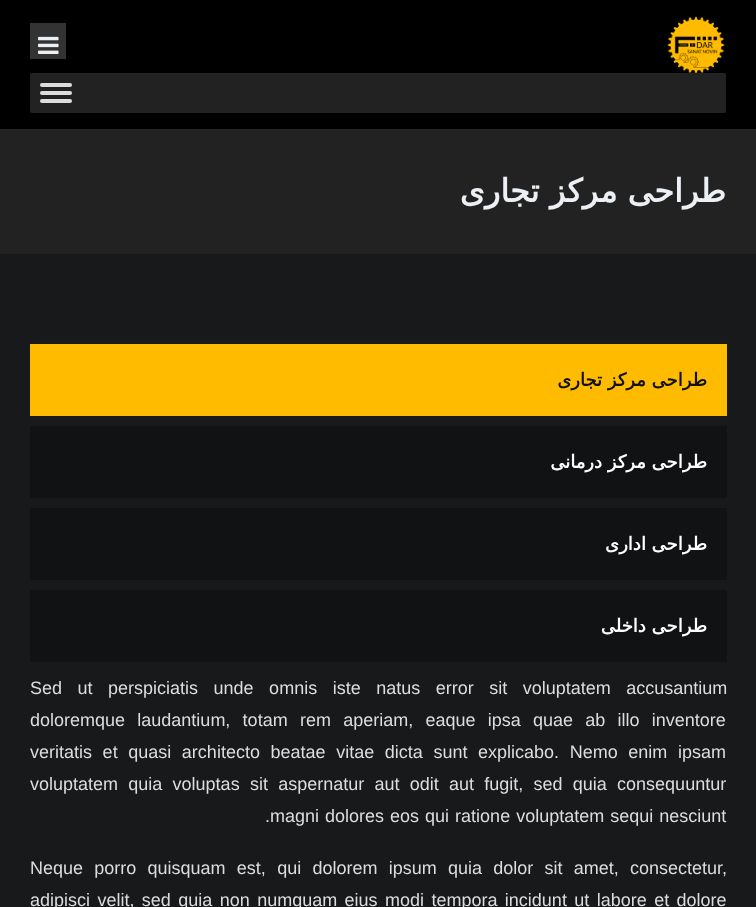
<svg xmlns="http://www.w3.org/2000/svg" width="756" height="907">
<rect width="100%" height="100%" fill="#000"/>
<rect x="30" y="23" width="36" height="36" fill="#333"/>
<image x="38" y="36" width="21" height="18" href="media/1.png"/>
<image x="667" y="16" width="58" height="57" href="media/2.png"/>
<rect x="30" y="73" width="696" height="40" rx="2" fill="#222"/>
<rect x="40" y="83" width="32" height="4" rx="2" fill="#ddd"/>
<rect x="40" y="91" width="32" height="4" rx="2" fill="#ddd"/>
<rect x="40" y="99" width="32" height="4" rx="2" fill="#ddd"/>
<rect y="129" width="756" height="125" fill="#222"/>
<text x="726" y="202" style="font-family:DejaVu Sans;font-size:32px;font-weight:bold;direction:rtl;fill:#eceff3">طراحی مرکز تجاری</text>
<rect y="254" width="756" height="653" fill="#18191b"/>
<rect x="30" y="344" width="697" height="72" fill="#fb0"/>
<text x="707" y="386" style="font-family:DejaVu Sans;font-size:18px;font-weight:bold;direction:rtl;fill:#111">طراحی مرکز تجاری</text>
<rect x="30" y="426" width="697" height="72" fill="#111213"/>
<text x="707" y="468" style="font-family:DejaVu Sans;font-size:18px;font-weight:bold;direction:rtl;fill:#fff">طراحی مرکز درمانی</text>
<rect x="30" y="508" width="697" height="72" fill="#111213"/>
<text x="707" y="550" style="font-family:DejaVu Sans;font-size:18px;font-weight:bold;direction:rtl;fill:#fff">طراحی اداری</text>
<rect x="30" y="590" width="697" height="72" fill="#111213"/>
<text x="707" y="632" style="font-family:DejaVu Sans;font-size:18px;font-weight:bold;direction:rtl;fill:#fff">طراحی داخلی</text>
<text x="30" y="694" word-spacing="10.5" style="font-family:Liberation Sans;font-size:18px;fill:#ddd">Sed ut perspiciatis unde omnis iste natus error sit voluptatem accusantium</text>
<text x="30" y="726" word-spacing="7.25" style="font-family:Liberation Sans;font-size:18px;fill:#ddd">doloremque laudantium, totam rem aperiam, eaque ipsa quae ab illo inventore</text>
<text x="30" y="758" word-spacing="5.6" style="font-family:Liberation Sans;font-size:18px;fill:#ddd">veritatis et quasi architecto beatae vitae dicta sunt explicabo. Nemo enim ipsam</text>
<text x="30" y="790" word-spacing="5.25" style="font-family:Liberation Sans;font-size:18px;fill:#ddd">voluptatem quia voluptas sit aspernatur aut odit aut fugit, sed quia consequuntur</text>
<text x="265" y="822" style="font-family:Liberation Sans;font-size:18px;fill:#ddd">.</text>
<text x="270" y="822" word-spacing="1" style="font-family:Liberation Sans;font-size:18px;fill:#ddd">magni dolores eos qui ratione voluptatem sequi nesciunt</text>
<text x="30" y="874" word-spacing="6.25" style="font-family:Liberation Sans;font-size:18px;fill:#ddd">Neque porro quisquam est, qui dolorem ipsum quia dolor sit amet, consectetur,</text>
<text x="30" y="906" word-spacing="2.4" style="font-family:Liberation Sans;font-size:18px;fill:#ddd">adipisci velit, sed quia non numquam eius modi tempora incidunt ut labore et dolore</text>
</svg>
